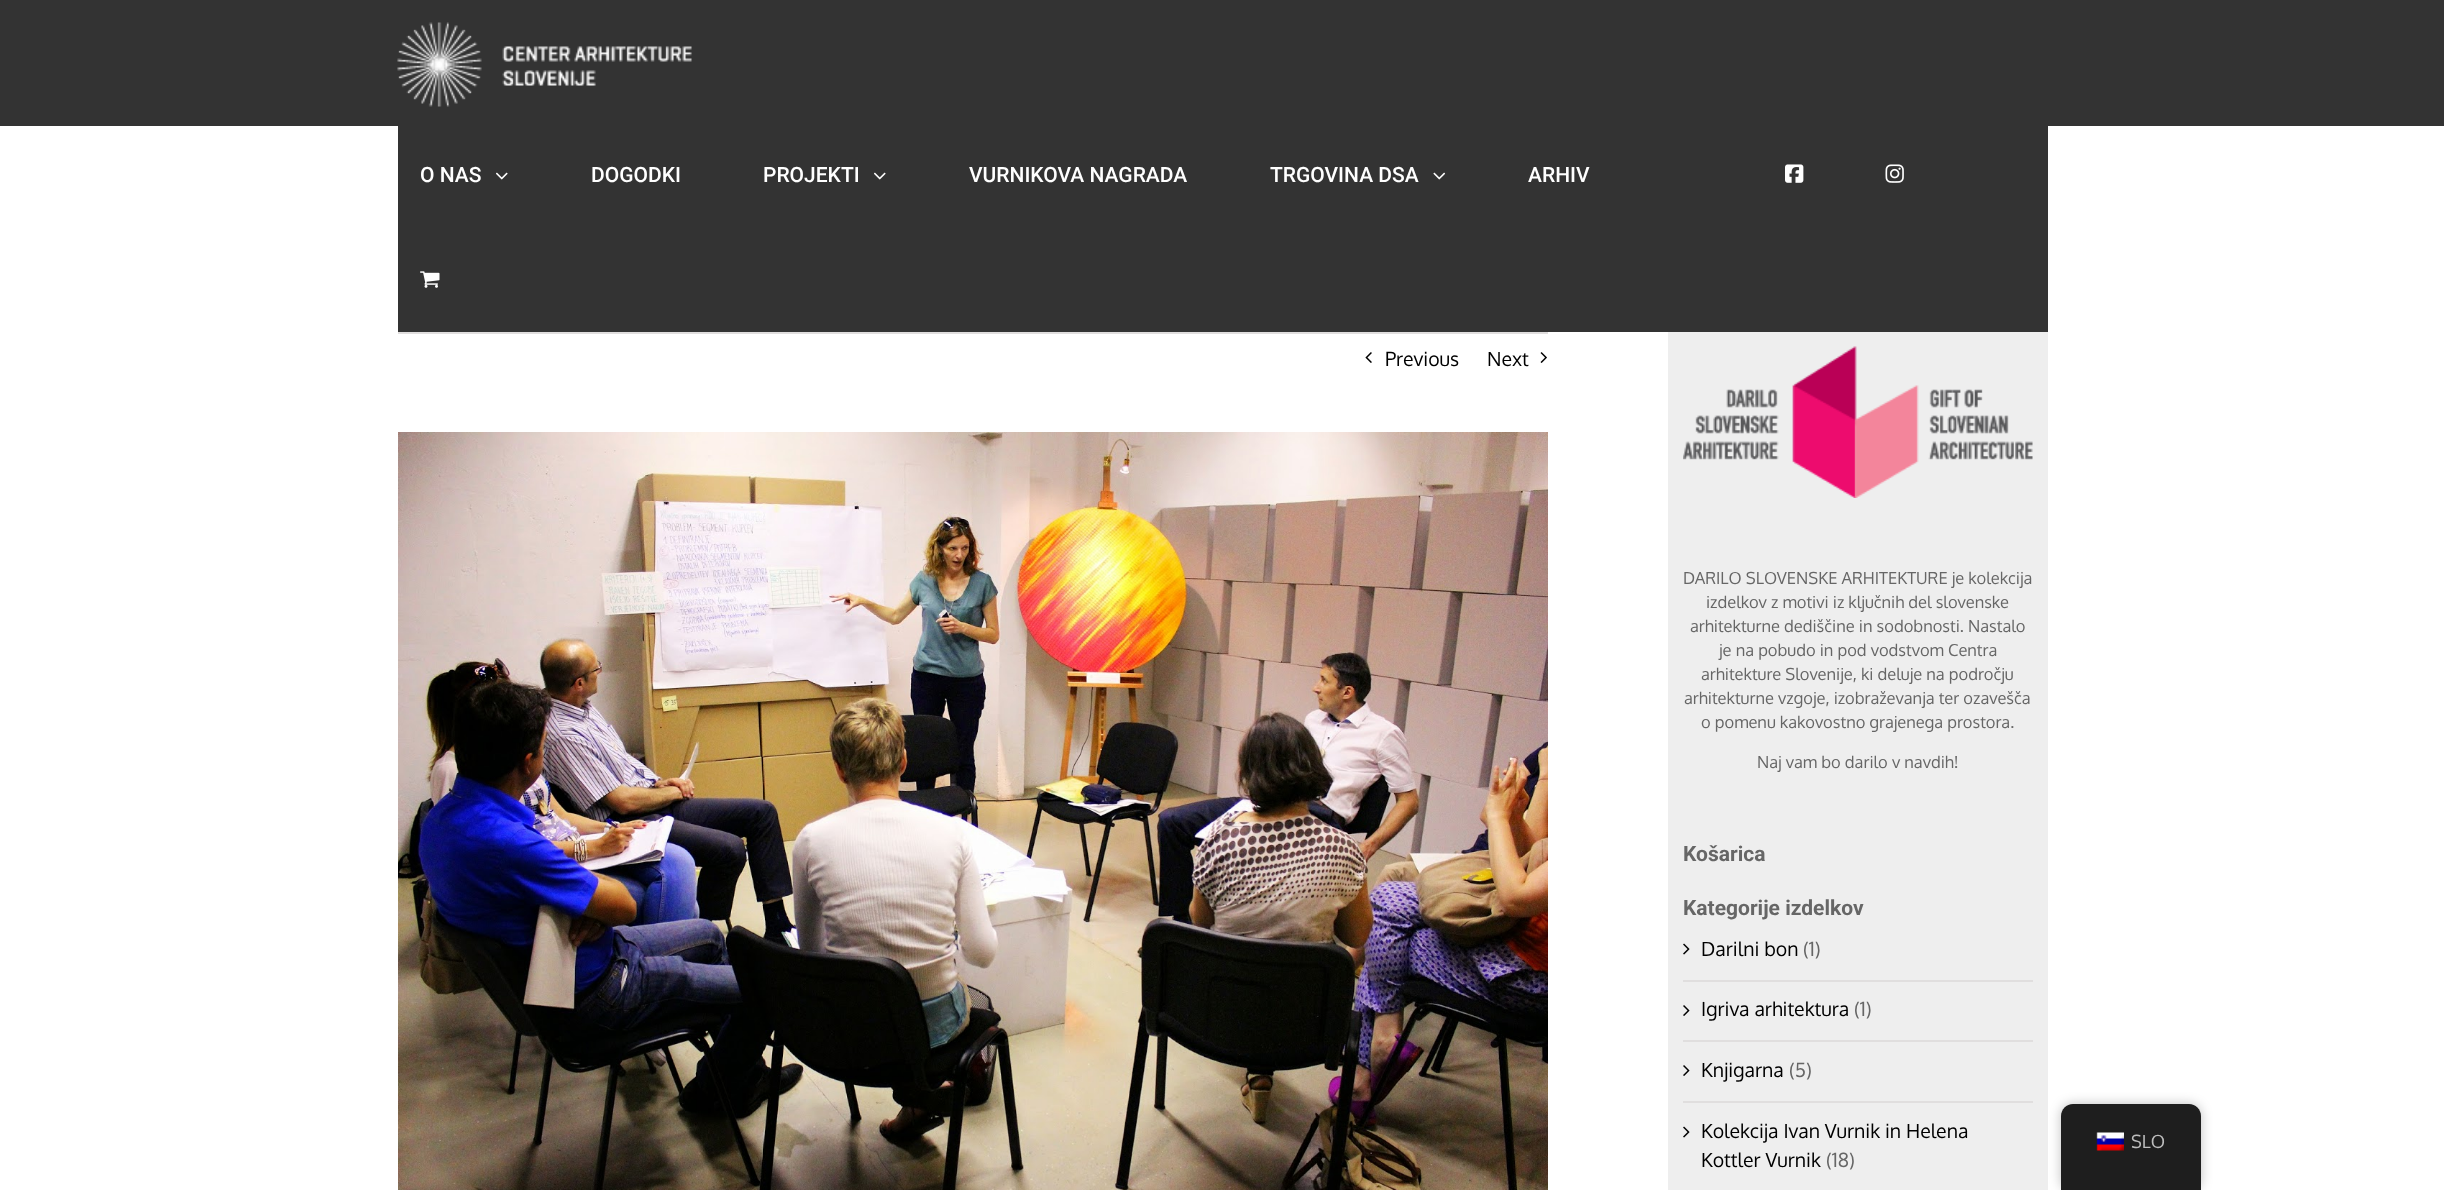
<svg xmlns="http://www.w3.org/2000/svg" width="2444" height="1190">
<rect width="100%" height="100%" fill="#fff"/>
<rect width="2444" height="126" fill="#333"/>
<image x="397" y="22" width="295" height="85" href="media/1.png"/>
<rect x="398" y="126" width="1650" height="206" fill="#333"/>
<text x="420" y="182" style="font-family:Roboto;font-size:21px;font-weight:500;fill:#fff">O NAS</text>
<image x="496" y="172" width="12" height="8" href="media/2.png"/>
<text x="591" y="182" style="font-family:Roboto;font-size:21px;font-weight:500;fill:#fff">DOGODKI</text>
<text x="763" y="182" style="font-family:Roboto;font-size:21px;font-weight:500;fill:#fff">PROJEKTI</text>
<image x="874" y="172" width="12" height="8" href="media/2.png"/>
<text x="969" y="182" style="font-family:Roboto;font-size:21px;font-weight:500;fill:#fff">VURNIKOVA NAGRADA</text>
<text x="1270" y="182" style="font-family:Roboto;font-size:21px;font-weight:500;fill:#fff">TRGOVINA DSA</text>
<image x="1433" y="172" width="13" height="8" href="media/3.png"/>
<text x="1528" y="182" style="font-family:Roboto;font-size:21px;font-weight:500;fill:#fff">ARHIV</text>
<image x="1785" y="164" width="19" height="19" href="media/4.png"/>
<image x="1885" y="164" width="19" height="19" href="media/5.png"/>
<image x="420" y="271" width="20" height="17" href="media/6.png"/>
<rect x="398" y="332" width="1150" height="2" fill="#e0dede"/>
<image x="1365" y="352" width="7" height="11" href="media/7.png"/>
<text x="1385" y="366" style="font-family:Oxygen;font-size:19.5px;fill:#000">Previous</text>
<text x="1487" y="366" style="font-family:Oxygen;font-size:19.5px;fill:#000">Next</text>
<image x="1540" y="352" width="7" height="11" href="media/8.png"/>
<image x="398" y="432" width="1150" height="758" href="media/9.png"/>
<rect x="1668" y="332" width="380" height="858" fill="#eee"/>
<image x="1683" y="346" width="350" height="152" href="media/10.png"/>
<text x="1683" y="584" style="font-family:Oxygen;font-size:16.5px;fill:#666">DARILO SLOVENSKE ARHITEKTURE je kolekcija</text>
<text x="1706" y="608" style="font-family:Oxygen;font-size:16.5px;fill:#666">izdelkov z motivi iz ključnih del slovenske</text>
<text x="1690" y="632" style="font-family:Oxygen;font-size:16.5px;fill:#666">arhitekturne dediščine in sodobnosti. Nastalo</text>
<text x="1719" y="656" style="font-family:Oxygen;font-size:16.5px;fill:#666">je na pobudo in pod vodstvom Centra</text>
<text x="1701" y="680" style="font-family:Oxygen;font-size:16.5px;fill:#666">arhitekture Slovenije, ki deluje na področju</text>
<text x="1684" y="704" style="font-family:Oxygen;font-size:16.5px;fill:#666">arhitekturne vzgoje, izobraževanja ter ozavešča</text>
<text x="1701" y="728" style="font-family:Oxygen;font-size:16.5px;fill:#666">o pomenu kakovostno grajenega prostora.</text>
<text x="1757" y="768" style="font-family:Oxygen;font-size:16.5px;fill:#666">Naj vam bo darilo v navdih!</text>
<text x="1683" y="861" style="font-family:Roboto;font-size:21px;font-weight:bold;fill:#666">Košarica</text>
<text x="1683" y="915" style="font-family:Roboto;font-size:21px;font-weight:bold;fill:#666">Kategorije izdelkov</text>
<rect x="1683" y="980" width="350" height="2" fill="#e0dede"/>
<image x="1683" y="943" width="7" height="12" href="media/11.png"/>
<text x="1701" y="956" style="font-family:Oxygen;font-size:19.5px;fill:#000">Darilni bon</text>
<text x="1803" y="956" style="font-family:Oxygen;font-size:19.5px;fill:#666">(1)</text>
<rect x="1683" y="1040" width="350" height="2" fill="#e0dede"/>
<image x="1683" y="1005" width="7" height="11" href="media/12.png"/>
<text x="1701" y="1016" style="font-family:Oxygen;font-size:19.5px;fill:#000">Igriva arhitektura</text>
<text x="1854" y="1016" style="font-family:Oxygen;font-size:19.5px;fill:#666">(1)</text>
<rect x="1683" y="1101" width="350" height="2" fill="#e0dede"/>
<image x="1683" y="1065" width="7" height="11" href="media/12.png"/>
<text x="1701" y="1077" style="font-family:Oxygen;font-size:19.5px;fill:#000">Knjigarna</text>
<text x="1789" y="1077" style="font-family:Oxygen;font-size:19.5px;fill:#666">(5)</text>
<image x="1683" y="1126" width="7" height="12" href="media/11.png"/>
<text x="1701" y="1138" style="font-family:Oxygen;font-size:19.5px;fill:#000">Kolekcija Ivan Vurnik in Helena</text>
<text x="1701" y="1167" style="font-family:Oxygen;font-size:19.5px;fill:#000">Kottler Vurnik</text>
<text x="1826" y="1167" style="font-family:Oxygen;font-size:19.5px;fill:#666">(18)</text>
<rect x="2061" y="1104" width="140" height="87" rx="12" fill="#00000040" filter="blur(6px)"/>
<path d="M2073 1104h116c6.5 0 12 5.5 12 12v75h-140v-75c0-6.5 5.5-12 12-12z" fill="#1e1e1e"/>
<image x="2096" y="1132" width="28" height="19" href="media/13.png"/>
<text x="2131" y="1148" style="font-family:Oxygen;font-size:18px;fill:#bdbdbd">SLO</text>
</svg>
